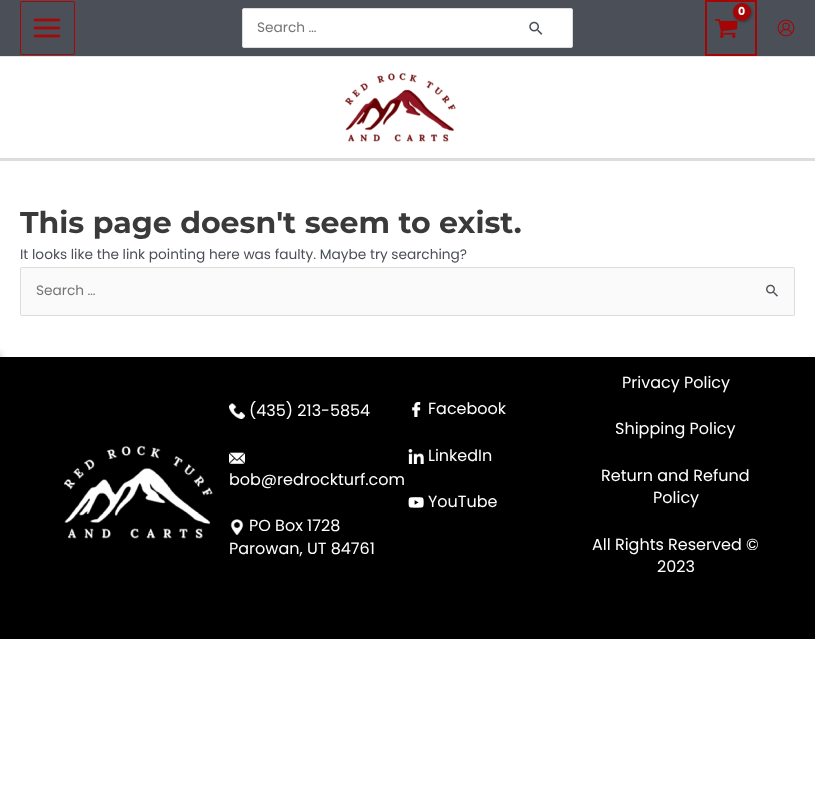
<svg xmlns="http://www.w3.org/2000/svg" width="815" height="806">
<rect width="100%" height="100%" fill="#fff"/>
<rect y="357" width="815" height="282" fill="#000"/>
<rect x="-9" y="352" width="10" height="45" fill="#00000029" filter="blur(3px)"/>
<rect width="815" height="56" fill="#4b4f58"/>
<rect y="56" width="815" height="1" fill="#e5e5e5"/>
<rect x="20.5" y="1.5" width="54" height="53" rx="1.5" fill="none" stroke="#a90606"/>
<image x="33" y="18" width="28" height="20" href="media/1.png"/>
<rect x="706" y="1" width="50" height="54" fill="none" stroke="#a50505" stroke-width="2"/>
<image x="715" y="19" width="23" height="19" href="media/2.png"/>
<rect x="734" y="4" width="18" height="18" rx="9" fill="#0000004d" filter="blur(1.5px)"/>
<circle cx="742" cy="12" r="9" fill="#a50505"/>
<text x="738" y="15" style="font-family:Poppins;font-size:11px;font-weight:bold;fill:#fff">0</text>
<image x="777" y="19" width="18" height="18" href="media/3.png"/>
<rect x="242.5" y="8.5" width="330" height="39" rx="1.5" fill="#fff" stroke="#ddd"/>
<text x="257" y="32" style="font-family:Poppins;font-size:13.7px;fill:#757575">Search …</text>
<image x="529" y="21" width="14" height="14" href="media/4.png"/>
<rect y="158" width="815" height="3" fill="#ddd"/>
<image x="344" y="73" width="112" height="69" href="media/5.png"/>
<text x="20" y="233" style="font-family:Montserrat;font-size:30px;font-weight:bold;fill:#3a3a3a">This page doesn't seem to exist.</text>
<text x="20" y="259" style="font-family:Poppins;font-size:13.7px;fill:#4b4f58">It looks like the link pointing here was faulty. Maybe try searching?</text>
<rect x="20.5" y="267.5" width="774" height="48" rx="1.5" fill="#fafafa" stroke="#ddd"/>
<text x="36" y="295" style="font-family:Poppins;font-size:13.7px;fill:#757575">Search …</text>
<image x="766" y="284" width="12" height="13" href="media/6.png"/>
<image x="64" y="445" width="149" height="94" href="media/7.png"/>
<image x="229" y="403" width="16" height="16" href="media/8.png"/>
<text x="249" y="416" style="font-family:Poppins;font-size:16px;fill:#fff">(435) 213-5854</text>
<image x="229" y="452" width="16" height="12" href="media/9.png"/>
<text x="229" y="485" style="font-family:Poppins;font-size:16px;fill:#fff">bob@redrockturf.com</text>
<image x="230" y="519" width="14" height="16" href="media/10.png"/>
<text x="249" y="531" style="font-family:Poppins;font-size:16px;fill:#fff">PO Box 1728</text>
<text x="229" y="554" style="font-family:Poppins;font-size:16px;fill:#fff">Parowan, UT 84761</text>
<image x="411" y="402" width="10" height="15" href="media/11.png"/>
<text x="428" y="414" style="font-family:Poppins;font-size:16px;fill:#fff">Facebook</text>
<image x="408" y="449" width="16" height="15" href="media/12.png"/>
<text x="428" y="461" style="font-family:Poppins;font-size:16px;fill:#fff">LinkedIn</text>
<image x="408" y="497" width="16" height="11" href="media/13.png"/>
<text x="428" y="507" style="font-family:Poppins;font-size:16px;fill:#fff">YouTube</text>
<text x="622" y="388" style="font-family:Poppins;font-size:16px;fill:#fff">Privacy Policy</text>
<text x="615" y="434" style="font-family:Poppins;font-size:16px;fill:#fff">Shipping Policy</text>
<text x="601" y="481" style="font-family:Poppins;font-size:16px;fill:#fff">Return and Refund</text>
<text x="653" y="503" style="font-family:Poppins;font-size:16px;fill:#fff">Policy</text>
<text x="592" y="550" style="font-family:Poppins;font-size:16px;fill:#fff">All Rights Reserved ©</text>
<text x="657" y="572" style="font-family:Poppins;font-size:16px;fill:#fff">2023</text>
</svg>
